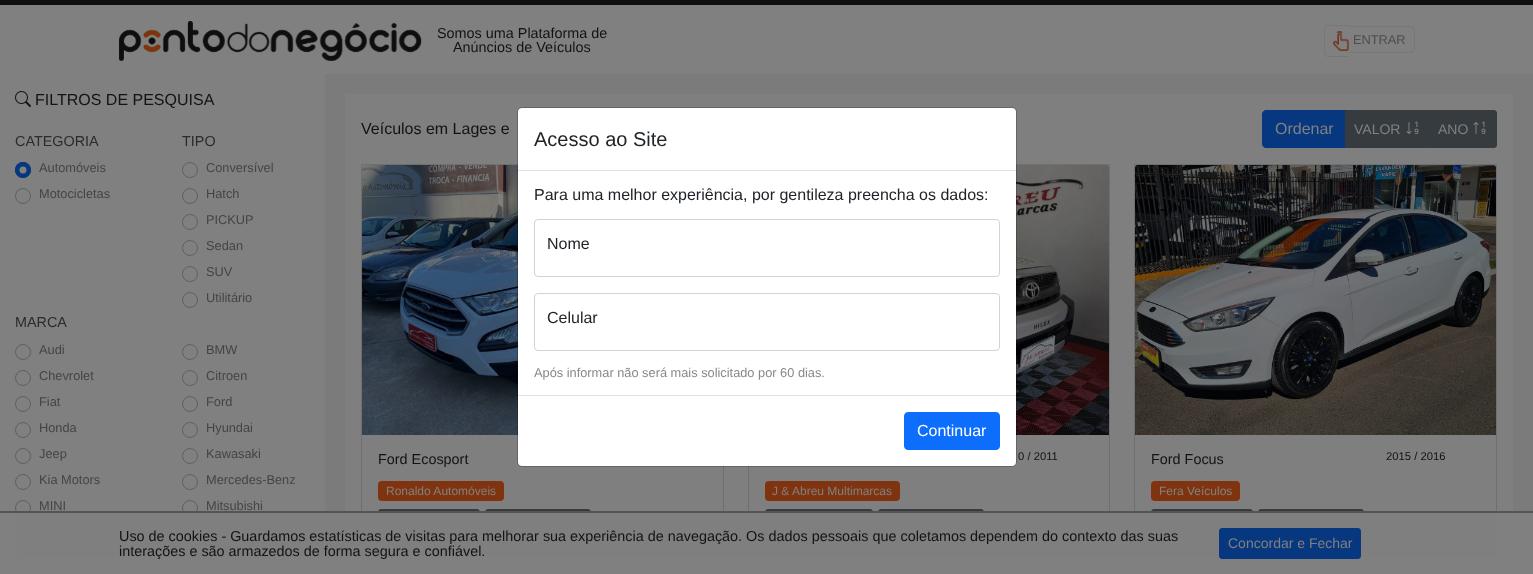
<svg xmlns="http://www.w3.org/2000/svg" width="1533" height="574">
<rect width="100%" height="100%" fill="#808080"/>
<rect width="1533" height="5" fill="#0f0f0e"/>
<image x="119" y="21" width="303" height="40" href="media/1.png"/>
<text x="437" y="38" style="font-family:Liberation Sans;font-size:14.4px;fill:#111315">Somos uma Plataforma de</text>
<text x="453" y="52" style="font-family:Liberation Sans;font-size:14.4px;fill:#111315">Anúncios de Veículos</text>
<path d="M1329 25h20v32h-20c-3 0-5-2-5-5v-22c0-3 2-5 5-5zm0 1h20v30h-20c-2 0-4-2-4-4v-22c0-2 2-4 4-4z" fill="#777" fill-rule="evenodd"/>
<image x="1333" y="31" width="16" height="20" href="media/2.png"/>
<path d="M1349 26h61c3 0 5 2 5 5v17c0 3-2 5-5 5h-61zm0 1h61c2 0 4 2 4 4v17c0 2-2 4-4 4h-61z" fill="#777" fill-rule="evenodd"/>
<text x="1353" y="44" style="font-family:Liberation Sans;font-size:12.8px;fill:#4d4d4d">ENTRAR</text>
<image x="15" y="91" width="16" height="16" href="media/3.png"/>
<text x="35" y="105" style="font-family:Liberation Sans;font-size:16px;fill:#111315">FILTROS DE PESQUISA</text>
<text x="15" y="146" style="font-family:Liberation Sans;font-size:14.4px;fill:#2b2b2b">CATEGORIA</text>
<circle cx="23" cy="170" r="8" fill="#07377f"/>
<circle cx="23" cy="170" r="3.5" fill="#808080"/>
<circle cx="23" cy="170" r="7.5" fill="none" stroke="#07377f"/>
<text x="39" y="172" style="font-family:Liberation Sans;font-size:12.8px;fill:#444">Automóveis</text>
<circle cx="23" cy="196" r="7.5" fill="none" stroke="#606060"/>
<text x="39" y="198" style="font-family:Liberation Sans;font-size:12.8px;fill:#444">Motocicletas</text>
<text x="182" y="146" style="font-family:Liberation Sans;font-size:14.4px;fill:#2b2b2b">TIPO</text>
<circle cx="190" cy="170" r="7.5" fill="none" stroke="#606060"/>
<text x="206" y="172" style="font-family:Liberation Sans;font-size:12.8px;fill:#444">Conversível</text>
<circle cx="190" cy="196" r="7.5" fill="none" stroke="#606060"/>
<text x="206" y="198" style="font-family:Liberation Sans;font-size:12.8px;fill:#444">Hatch</text>
<circle cx="190" cy="222" r="7.5" fill="none" stroke="#606060"/>
<text x="206" y="224" style="font-family:Liberation Sans;font-size:12.8px;fill:#444">PICKUP</text>
<circle cx="190" cy="248" r="7.5" fill="none" stroke="#606060"/>
<text x="206" y="250" style="font-family:Liberation Sans;font-size:12.8px;fill:#444">Sedan</text>
<circle cx="190" cy="274" r="7.5" fill="none" stroke="#606060"/>
<text x="206" y="276" style="font-family:Liberation Sans;font-size:12.8px;fill:#444">SUV</text>
<circle cx="190" cy="300" r="7.5" fill="none" stroke="#606060"/>
<text x="206" y="302" style="font-family:Liberation Sans;font-size:12.8px;fill:#444">Utilitário</text>
<text x="15" y="327" style="font-family:Liberation Sans;font-size:14.4px;fill:#2b2b2b">MARCA</text>
<circle cx="23" cy="352" r="7.5" fill="none" stroke="#606060"/>
<text x="39" y="354" style="font-family:Liberation Sans;font-size:12.8px;fill:#444">Audi</text>
<circle cx="190" cy="352" r="7.5" fill="none" stroke="#606060"/>
<text x="206" y="354" style="font-family:Liberation Sans;font-size:12.8px;fill:#444">BMW</text>
<circle cx="23" cy="378" r="7.5" fill="none" stroke="#606060"/>
<text x="39" y="380" style="font-family:Liberation Sans;font-size:12.8px;fill:#444">Chevrolet</text>
<circle cx="190" cy="378" r="7.5" fill="none" stroke="#606060"/>
<text x="206" y="380" style="font-family:Liberation Sans;font-size:12.8px;fill:#444">Citroen</text>
<circle cx="23" cy="404" r="7.5" fill="none" stroke="#606060"/>
<text x="39" y="406" style="font-family:Liberation Sans;font-size:12.8px;fill:#444">Fiat</text>
<circle cx="190" cy="404" r="7.5" fill="none" stroke="#606060"/>
<text x="206" y="406" style="font-family:Liberation Sans;font-size:12.8px;fill:#444">Ford</text>
<circle cx="23" cy="430" r="7.5" fill="none" stroke="#606060"/>
<text x="39" y="432" style="font-family:Liberation Sans;font-size:12.8px;fill:#444">Honda</text>
<circle cx="190" cy="430" r="7.5" fill="none" stroke="#606060"/>
<text x="206" y="432" style="font-family:Liberation Sans;font-size:12.8px;fill:#444">Hyundai</text>
<circle cx="23" cy="456" r="7.5" fill="none" stroke="#606060"/>
<text x="39" y="458" style="font-family:Liberation Sans;font-size:12.8px;fill:#444">Jeep</text>
<circle cx="190" cy="456" r="7.5" fill="none" stroke="#606060"/>
<text x="206" y="458" style="font-family:Liberation Sans;font-size:12.8px;fill:#444">Kawasaki</text>
<circle cx="23" cy="482" r="7.5" fill="none" stroke="#606060"/>
<text x="39" y="484" style="font-family:Liberation Sans;font-size:12.8px;fill:#444">Kia Motors</text>
<circle cx="190" cy="482" r="7.5" fill="none" stroke="#606060"/>
<text x="206" y="484" style="font-family:Liberation Sans;font-size:12.8px;fill:#444">Mercedes-Benz</text>
<circle cx="23" cy="508" r="7.5" fill="none" stroke="#606060"/>
<text x="39" y="510" style="font-family:Liberation Sans;font-size:12.8px;fill:#444">MINI</text>
<circle cx="190" cy="508" r="7.5" fill="none" stroke="#606060"/>
<text x="206" y="510" style="font-family:Liberation Sans;font-size:12.8px;fill:#444">Mitsubishi</text>
<rect x="325" y="74" width="1208" height="437" fill="#7b7b7b"/>
<rect x="345" y="94" width="1168" height="417" fill="#7f7f7f"/>
<text x="361" y="134" style="font-family:Liberation Sans;font-size:16px;fill:#111315">Veículos em Lages e</text>
<path d="M1266 110.5h79.5v37h-79.5c-2 0-3.5-1.5-3.5-3.5v-30c0-2 1.5-3.5 3.5-3.5z" fill="#07377f" stroke="#07377f"/>
<text x="1275" y="134" style="font-family:Liberation Sans;font-size:16px;fill:#808080">Ordenar</text>
<rect x="1345" y="110" width="84" height="38" fill="#363b3f"/>
<text x="1354" y="134" style="font-family:Liberation Sans;font-size:14px;fill:#808080">VALOR</text>
<image x="1406" y="121" width="13" height="14" href="media/4.png"/>
<path d="M1429.5 110.5h64.5c1.5 0 2.5 1 2.5 2.5v32c0 1.5-1 2.5-2.5 2.5h-64.5z" fill="#363b3f" stroke="#363b3f"/>
<text x="1438" y="134" style="font-family:Liberation Sans;font-size:14px;fill:#808080">ANO</text>
<image x="1473" y="121" width="13" height="14" href="media/5.png"/>
<rect x="361.5" y="164.5" width="362" height="392" fill="none" stroke="#6f6f6f"/>
<image x="362" y="165" width="156" height="270" href="media/6.png"/>
<text x="378" y="464" style="font-family:Liberation Sans;font-size:14.4px;fill:#111315">Ford Ecosport</text>
<rect x="378" y="481" width="126" height="20" rx="4" fill="#7f340f"/>
<text x="386" y="495" style="font-family:Liberation Sans;font-size:12px;fill:#808080">Ronaldo Automóveis</text>
<rect x="378.5" y="509.5" width="101" height="30" rx="2.5" fill="#363b3f" stroke="#363b3f"/>
<rect x="485.5" y="509.5" width="105" height="30" rx="2.5" fill="#363b3f" stroke="#363b3f"/>
<rect x="748.5" y="164.5" width="361" height="392" fill="none" stroke="#6f6f6f"/>
<image x="1016" y="165" width="93" height="270" href="media/7.png"/>
<text x="1018" y="460" style="font-family:Liberation Sans;font-size:11.25px;fill:#111315">0 / 2011</text>
<rect x="765" y="481" width="135" height="20" rx="4" fill="#7f340f"/>
<text x="772" y="495" style="font-family:Liberation Sans;font-size:12px;fill:#808080">J &amp; Abreu Multimarcas</text>
<rect x="765.5" y="509.5" width="107" height="30" rx="2.5" fill="#363b3f" stroke="#363b3f"/>
<rect x="878.5" y="509.5" width="105" height="30" rx="2.5" fill="#363b3f" stroke="#363b3f"/>
<rect x="1134.5" y="164.5" width="362" height="392" fill="none" stroke="#6f6f6f"/>
<image x="1135" y="165" width="361" height="270" href="media/8.png"/>
<text x="1151" y="464" style="font-family:Liberation Sans;font-size:14.4px;fill:#111315">Ford Focus</text>
<text x="1386" y="460" style="font-family:Liberation Sans;font-size:11.25px;fill:#111315">2015 / 2016</text>
<rect x="1151" y="481" width="89" height="20" rx="4" fill="#7f340f"/>
<text x="1159" y="495" style="font-family:Liberation Sans;font-size:12px;fill:#808080">Fera Veículos</text>
<rect x="1151.5" y="509.5" width="101" height="30" rx="2.5" fill="#363b3f" stroke="#363b3f"/>
<rect x="1258.5" y="509.5" width="105" height="30" rx="2.5" fill="#363b3f" stroke="#363b3f"/>
<rect x="518" y="108" width="498" height="358" rx="4" fill="#fff"/>
<rect x="517.5" y="107.5" width="499" height="359" rx="4.5" fill="none" stroke="#00000033"/>
<rect x="518" y="170" width="498" height="1" fill="#dee2e6"/>
<text x="534" y="146" style="font-family:Liberation Sans;font-size:20px;fill:#212529">Acesso ao Site</text>
<text x="534" y="200" style="font-family:Liberation Sans;font-size:16px;fill:#212529">Para uma melhor experiência, por gentileza preencha os dados:</text>
<rect x="534.5" y="219.5" width="465" height="57" rx="3.5" fill="none" stroke="#ced4da"/>
<text x="547" y="249" style="font-family:Liberation Sans;font-size:16px;fill:#212529">Nome</text>
<rect x="534.5" y="293.5" width="465" height="57" rx="3.5" fill="none" stroke="#ced4da"/>
<text x="547" y="323" style="font-family:Liberation Sans;font-size:16px;fill:#212529">Celular</text>
<text x="534" y="377" style="font-family:Liberation Sans;font-size:12.8px;fill:#888">Após informar não será mais solicitado por 60 dias.</text>
<rect x="518" y="395" width="498" height="1" fill="#dee2e6"/>
<rect x="904.5" y="412.5" width="95" height="37" rx="3.5" fill="#0d6efd" stroke="#0d6efd"/>
<text x="917" y="436" style="font-family:Liberation Sans;font-size:16px;fill:#fff">Continuar</text>
<rect x="17" y="513" width="1480" height="44" fill="#7f7f7f"/>
<rect y="511" width="1533" height="2" fill="#555"/>
<text x="119" y="541" style="font-family:Liberation Sans;font-size:14.4px;fill:#111315">Uso de cookies - Guardamos estatísticas de visitas para melhorar sua experiência de navegação. Os dados pessoais que coletamos dependem do contexto das suas</text>
<text x="119" y="556" style="font-family:Liberation Sans;font-size:14.4px;fill:#111315">interações e são armazedos de forma segura e confiável.</text>
<rect x="1219.5" y="528.5" width="141" height="30" rx="2.5" fill="#07377f" stroke="#07377f"/>
<text x="1228" y="548" style="font-family:Liberation Sans;font-size:14px;fill:#808080">Concordar e Fechar</text>
</svg>
